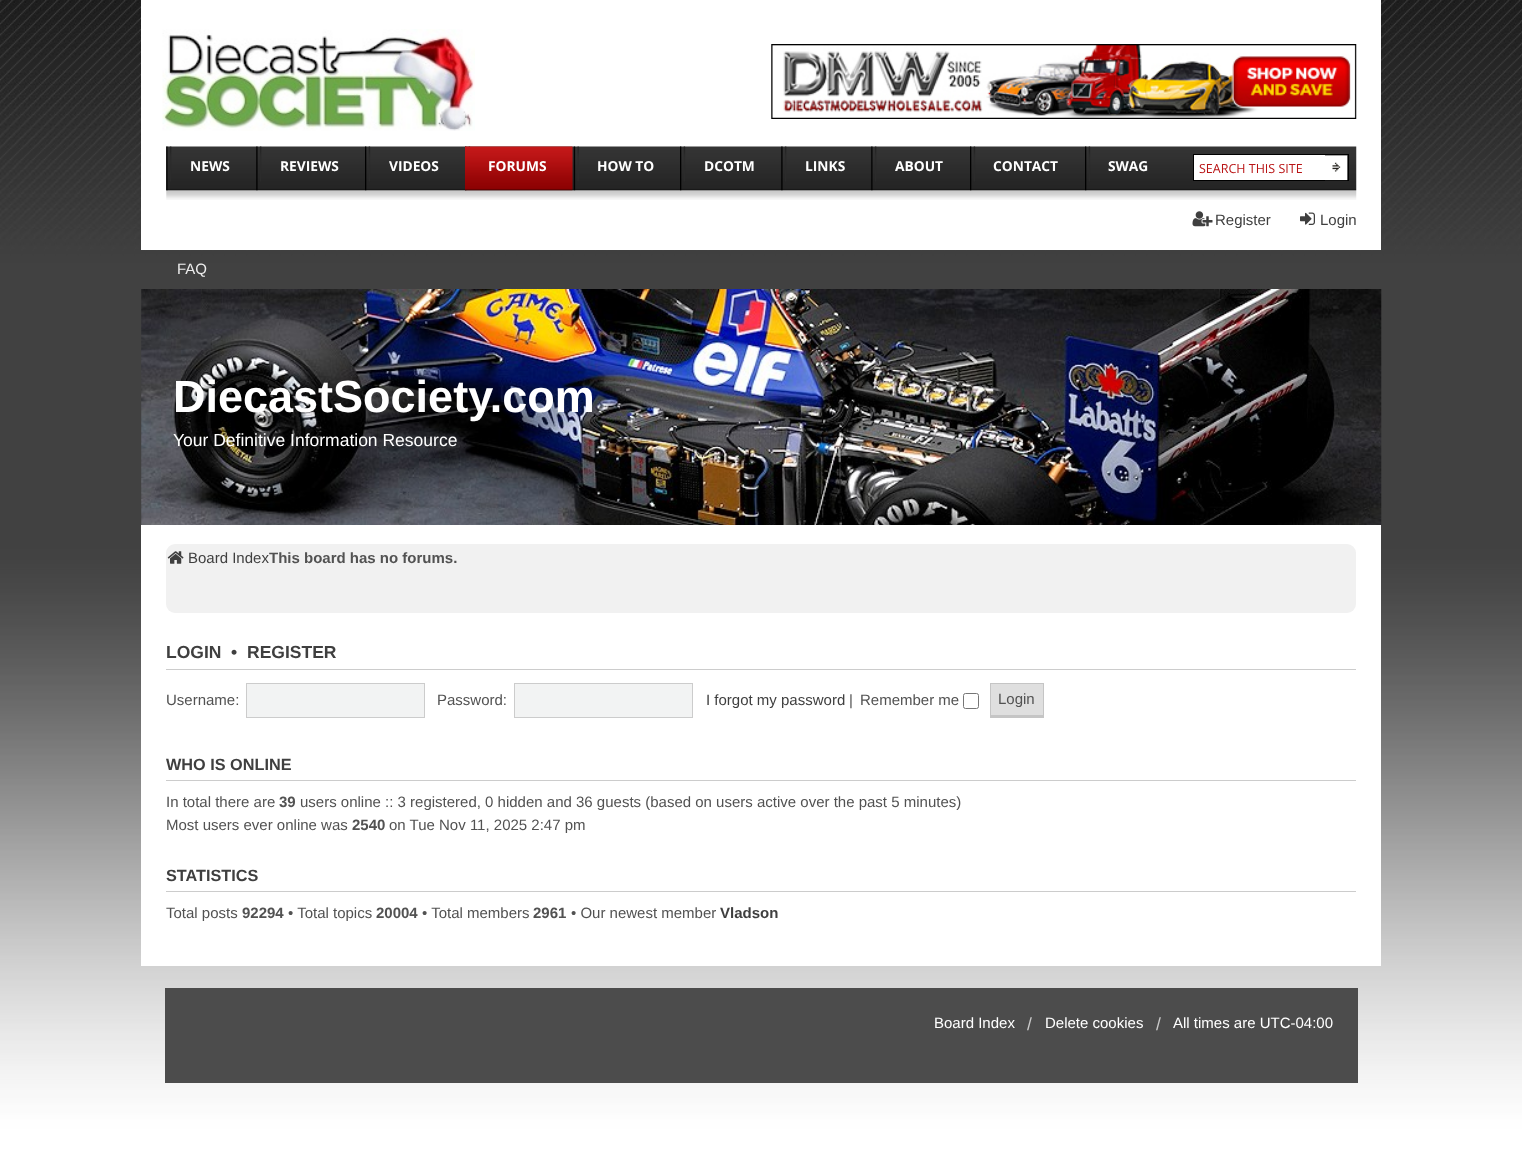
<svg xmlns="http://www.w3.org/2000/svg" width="1522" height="1158">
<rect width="100%" height="100%" fill="#fff"/>
<image x="0" y="0" width="1522" height="1158" href="media/1.png"/>
<rect x="141" width="1240" height="250" fill="#fff"/>
<image x="166" y="146" width="1191" height="54" href="media/2.png"/>
<image x="162" y="29" width="313" height="102" href="media/3.png"/>
<image x="771" y="44" width="586" height="75" href="media/4.png"/>
<image x="166" y="146" width="6" height="45" href="media/5.png"/>
<text x="190" y="171" style="font-family:Open Sans;font-size:13.75px;font-weight:bold;fill:#fff">NEWS</text>
<image x="256" y="146" width="6" height="45" href="media/6.png"/>
<text x="280" y="171" style="font-family:Open Sans;font-size:13.75px;font-weight:bold;fill:#fff">REVIEWS</text>
<image x="365" y="146" width="6" height="45" href="media/7.png"/>
<text x="389" y="171" style="font-family:Open Sans;font-size:13.75px;font-weight:bold;fill:#fff">VIDEOS</text>
<image x="465" y="146" width="6" height="45" href="media/7.png"/>
<image x="465" y="146" width="108" height="45" href="media/8.png"/>
<text x="488" y="171" style="font-family:Open Sans;font-size:13.75px;font-weight:bold;fill:#fff">FORUMS</text>
<image x="573" y="146" width="6" height="45" href="media/9.png"/>
<text x="597" y="171" style="font-family:Open Sans;font-size:13.75px;font-weight:bold;fill:#fff">HOW TO</text>
<image x="680" y="146" width="6" height="45" href="media/7.png"/>
<text x="704" y="171" style="font-family:Open Sans;font-size:13.75px;font-weight:bold;fill:#fff">DCOTM</text>
<image x="781" y="146" width="6" height="45" href="media/6.png"/>
<text x="805" y="171" style="font-family:Open Sans;font-size:13.75px;font-weight:bold;fill:#fff">LINKS</text>
<image x="871" y="146" width="6" height="45" href="media/10.png"/>
<text x="895" y="171" style="font-family:Open Sans;font-size:13.75px;font-weight:bold;fill:#fff">ABOUT</text>
<image x="970" y="146" width="6" height="45" href="media/7.png"/>
<text x="993" y="171" style="font-family:Open Sans;font-size:13.75px;font-weight:bold;fill:#fff">CONTACT</text>
<image x="1085" y="146" width="6" height="45" href="media/7.png"/>
<text x="1108" y="171" style="font-family:Open Sans;font-size:13.75px;font-weight:bold;fill:#fff">SWAG</text>
<rect x="1193.5" y="154.5" width="155" height="26" fill="none" stroke="#000"/>
<rect x="1194" y="155" width="131" height="25" fill="#fff"/>
<text x="1199" y="173" style="font-family:Open Sans;font-size:12.5px;fill:#b91415">SEARCH THIS SITE</text>
<image x="1325" y="155" width="23" height="26" href="media/11.png"/>
<image x="1192" y="211" width="21" height="16" href="media/12.png"/>
<text x="1215" y="225" style="font-family:Liberation Sans;font-size:15px;fill:#3f3f3f">Register</text>
<image x="1300" y="212" width="15" height="13" href="media/13.png"/>
<text x="1320" y="225" style="font-family:Liberation Sans;font-size:15px;fill:#3f3f3f">Login</text>
<text x="177" y="274" style="font-family:Liberation Sans;font-size:15px;fill:#eee">FAQ</text>
<image x="141" y="289" width="1241" height="236" href="media/14.png"/>
<text x="173" y="412" style="font-family:Liberation Sans;font-size:45px;font-weight:bold;fill:#fff">DiecastSociety.com</text>
<text x="173" y="446" style="font-family:Liberation Sans;font-size:17.5px;fill:#fff">Your Definitive Information Resource</text>
<rect x="141" y="525" width="1240" height="441" fill="#fff"/>
<rect x="166" y="544" width="1190" height="69" rx="9" fill="#f1f1f1"/>
<image x="167" y="551" width="17" height="13" href="media/15.png"/>
<text x="188" y="563" style="font-family:Liberation Sans;font-size:15px;fill:#3f3f3f">Board Index</text>
<text x="269" y="563" style="font-family:Liberation Sans;font-size:15px;font-weight:bold;fill:#525252">This board has no forums.</text>
<rect x="166" y="669" width="1190" height="1" fill="#ccc"/>
<text x="166" y="658" style="font-family:Liberation Sans;font-size:17.5px;font-weight:bold;fill:#3f3f3f">LOGIN</text>
<text x="231" y="658" style="font-family:Liberation Sans;font-size:17.5px;font-weight:bold;fill:#3f3f3f">•</text>
<text x="247" y="658" style="font-family:Liberation Sans;font-size:17.5px;font-weight:bold;fill:#3f3f3f">REGISTER</text>
<text x="166" y="705" style="font-family:Liberation Sans;font-size:15px;fill:#525252">Username:</text>
<rect x="246.5" y="683.5" width="178" height="34" fill="#f2f3f3" stroke="#ccc"/>
<text x="437" y="705" style="font-family:Liberation Sans;font-size:15px;fill:#525252">Password:</text>
<rect x="514.5" y="683.5" width="178" height="34" fill="#f2f3f3" stroke="#ccc"/>
<text x="706" y="705" style="font-family:Liberation Sans;font-size:15px;fill:#3f3f3f">I forgot my password</text>
<text x="849" y="705" style="font-family:Liberation Sans;font-size:15px;fill:#525252">|</text>
<text x="860" y="705" style="font-family:Liberation Sans;font-size:15px;fill:#525252">Remember me</text>
<rect x="963.5" y="693.5" width="15" height="15" rx="2" fill="none" stroke="#767676"/>
<rect x="991" y="684" width="52" height="31" fill="#dfdfdf"/>
<rect x="990" y="683" width="54" height="1" fill="#c5c5c5"/>
<rect x="1043" y="683" width="1" height="35" fill="#c5c5c5"/>
<rect x="990" y="715" width="54" height="3" fill="#c5c5c5"/>
<rect x="990" y="683" width="1" height="35" fill="#c5c5c5"/>
<text x="998" y="704" style="font-family:Liberation Sans;font-size:15px;fill:#525252">Login</text>
<rect x="166" y="780" width="1190" height="1" fill="#ccc"/>
<text x="166" y="770" style="font-family:Liberation Sans;font-size:16.25px;font-weight:bold;fill:#3f3f3f">WHO IS ONLINE</text>
<text x="166" y="807" style="font-family:Liberation Sans;font-size:15px;fill:#525252">In total there are</text>
<text x="279" y="807" style="font-family:Liberation Sans;font-size:15px;font-weight:bold;fill:#525252">39</text>
<text x="300" y="807" style="font-family:Liberation Sans;font-size:15px;fill:#525252">users online :: 3 registered, 0 hidden and 36 guests (based on users active over the past 5 minutes)</text>
<text x="166" y="830" style="font-family:Liberation Sans;font-size:15px;fill:#525252">Most users ever online was</text>
<text x="352" y="830" style="font-family:Liberation Sans;font-size:15px;font-weight:bold;fill:#525252">2540</text>
<text x="389" y="830" style="font-family:Liberation Sans;font-size:15px;fill:#525252">on Tue Nov 11, 2025 2:47 pm</text>
<rect x="166" y="891" width="1190" height="1" fill="#ccc"/>
<text x="166" y="881" style="font-family:Liberation Sans;font-size:16.25px;font-weight:bold;fill:#3f3f3f">STATISTICS</text>
<text x="166" y="918" style="font-family:Liberation Sans;font-size:15px;fill:#525252">Total posts</text>
<text x="242" y="918" style="font-family:Liberation Sans;font-size:15px;font-weight:bold;fill:#525252">92294</text>
<text x="288" y="918" style="font-family:Liberation Sans;font-size:15px;fill:#525252">• Total topics</text>
<text x="376" y="918" style="font-family:Liberation Sans;font-size:15px;font-weight:bold;fill:#525252">20004</text>
<text x="422" y="918" style="font-family:Liberation Sans;font-size:15px;fill:#525252">• Total members</text>
<text x="533" y="918" style="font-family:Liberation Sans;font-size:15px;font-weight:bold;fill:#525252">2961</text>
<text x="571" y="918" style="font-family:Liberation Sans;font-size:15px;fill:#525252">• Our newest member</text>
<text x="720" y="918" style="font-family:Liberation Sans;font-size:15px;font-weight:bold;fill:#3f3f3f">Vladson</text>
<rect x="165" y="988" width="1193" height="95" fill="#4c4c4c"/>
<text x="934" y="1028" style="font-family:Liberation Sans;font-size:15px;fill:#fff">Board Index</text>
<text x="1027" y="1030" style="font-family:Liberation Sans;font-size:17.5px;fill:#cacaca">/</text>
<text x="1045" y="1028" style="font-family:Liberation Sans;font-size:15px;fill:#fff">Delete cookies</text>
<text x="1156" y="1030" style="font-family:Liberation Sans;font-size:17.5px;fill:#cacaca">/</text>
<text x="1173" y="1028" style="font-family:Liberation Sans;font-size:15px;fill:#fff">All times are UTC-04:00</text>
</svg>
